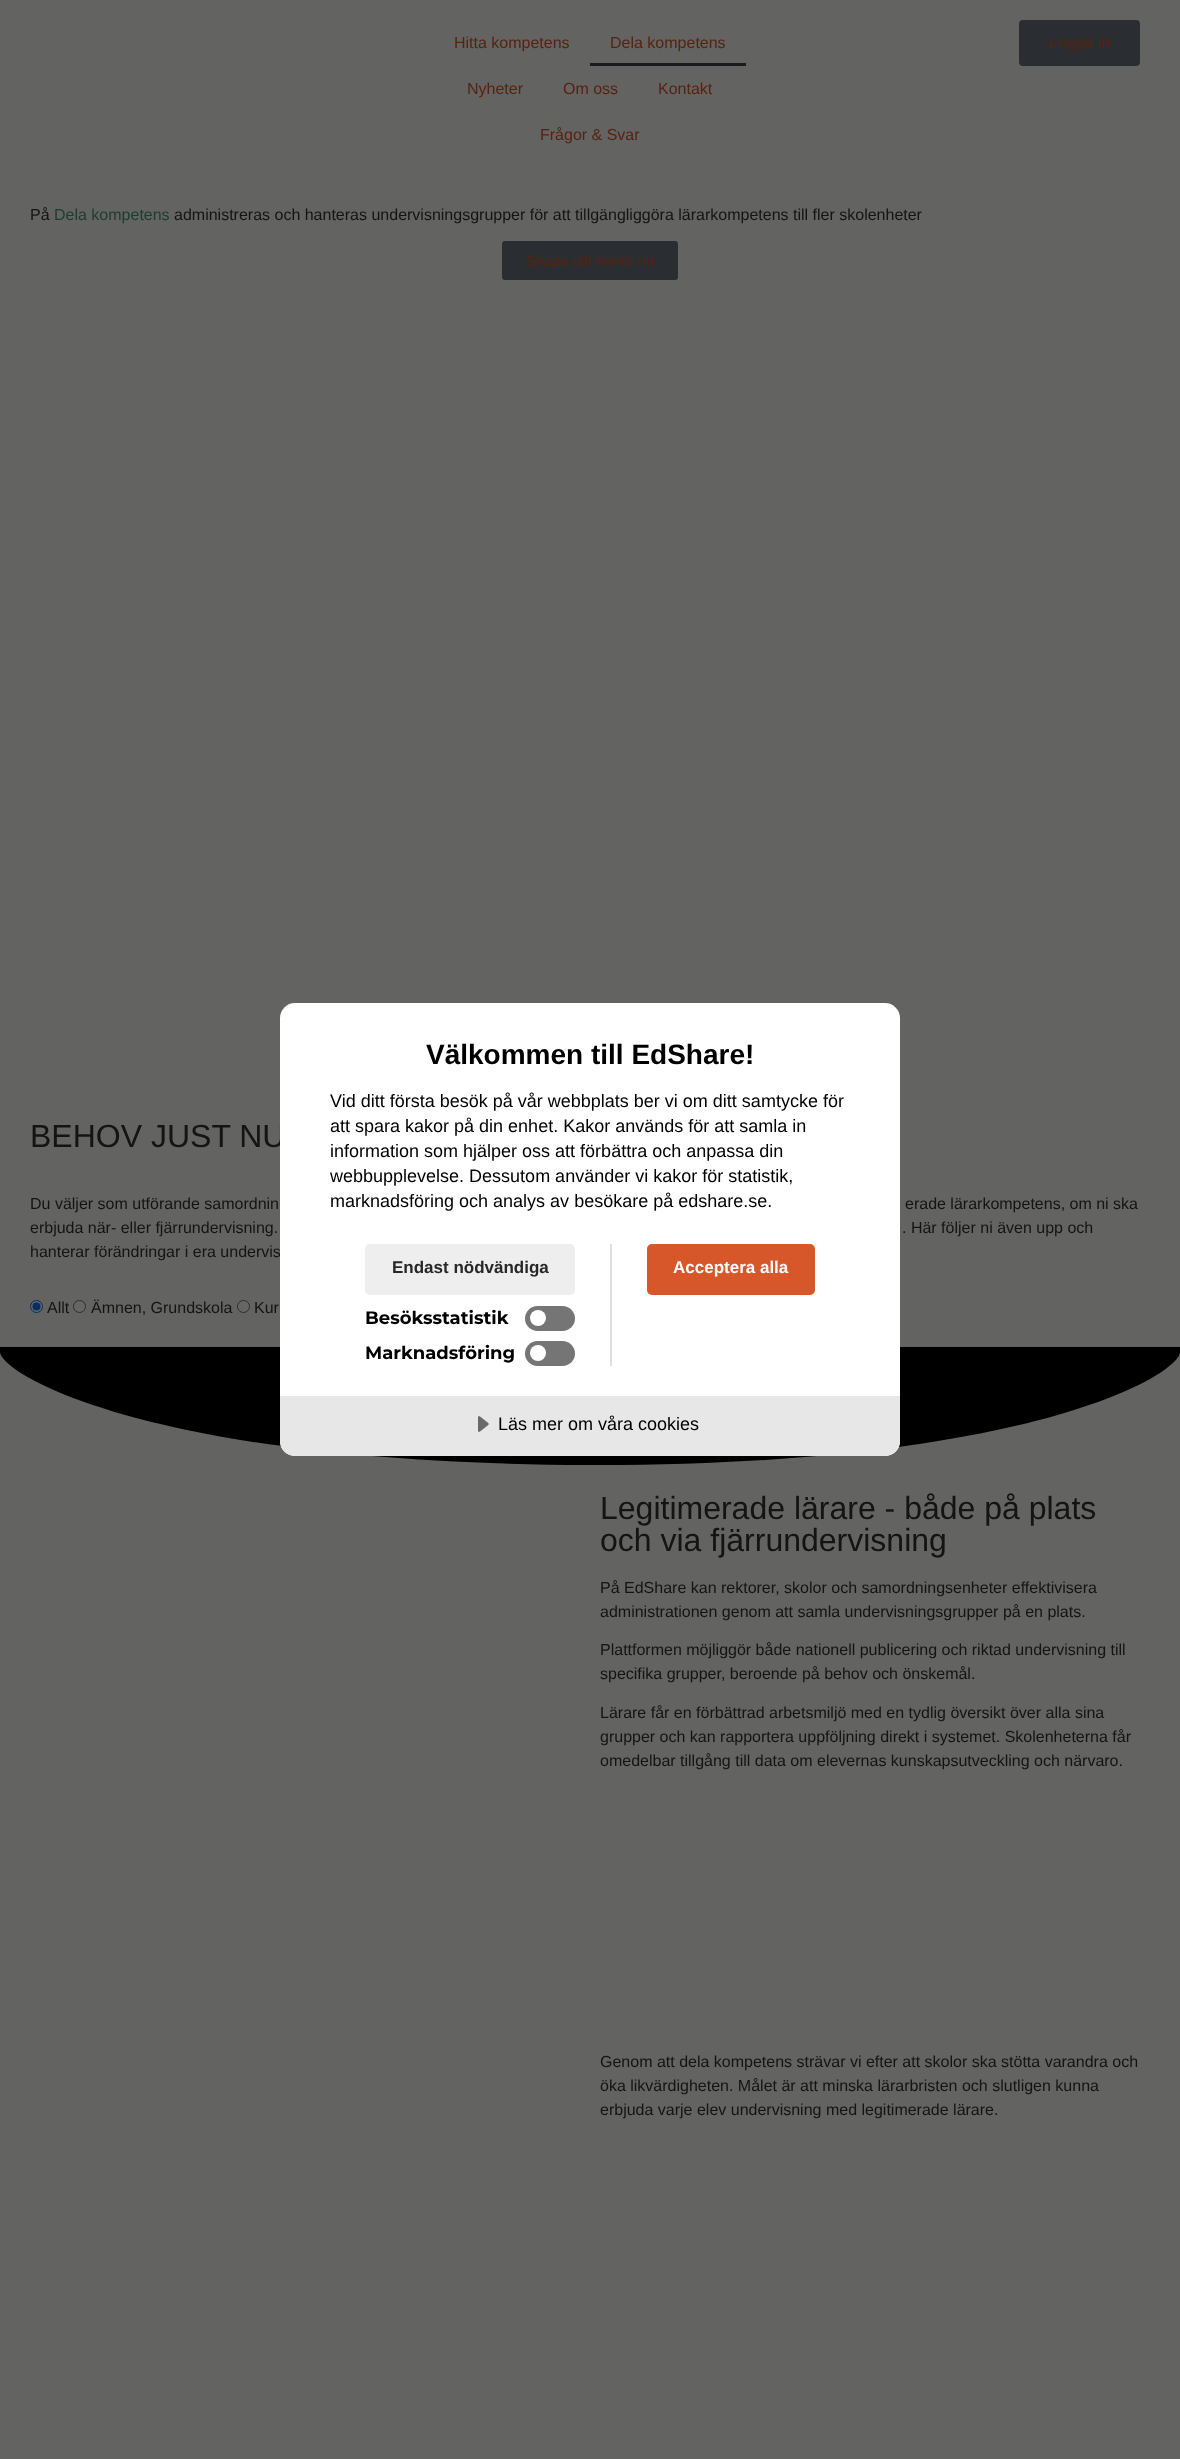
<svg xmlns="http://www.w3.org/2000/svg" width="1180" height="2459">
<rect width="100%" height="100%" fill="#636362"/>
<text x="454" y="48" style="font-family:Liberation Sans;font-size:16px;fill:#562311">Hitta kompetens</text>
<text x="610" y="48" style="font-family:Liberation Sans;font-size:16px;fill:#562311">Dela kompetens</text>
<rect x="590" y="63" width="156" height="3" fill="#191b1e"/>
<text x="467" y="94" style="font-family:Liberation Sans;font-size:16px;fill:#562311">Nyheter</text>
<text x="563" y="94" style="font-family:Liberation Sans;font-size:16px;fill:#562311">Om oss</text>
<text x="658" y="94" style="font-family:Liberation Sans;font-size:16px;fill:#562311">Kontakt</text>
<text x="540" y="140" style="font-family:Liberation Sans;font-size:16px;fill:#562311">Frågor &amp; Svar</text>
<rect x="1019" y="20" width="121" height="46" rx="4" fill="#2a2e32"/>
<text x="1049" y="48" style="font-family:Liberation Sans;font-size:16px;fill:#562311">Logga in</text>
<text x="30" y="220" style="font-family:Liberation Sans;font-size:16px;fill:#141414">På</text>
<text x="54" y="220" style="font-family:Liberation Sans;font-size:16px;fill:#1b3d2f">Dela kompetens</text>
<text x="174" y="220" style="font-family:Liberation Sans;font-size:16px;fill:#141414">administreras och hanteras undervisningsgrupper för att tillgängliggöra lärarkompetens till fler skolenheter</text>
<rect x="502" y="241" width="176" height="39" rx="3" fill="#2a2e32"/>
<text x="526" y="266" style="font-family:Liberation Sans;font-size:15px;fill:#562311">Skapa ditt konto nu</text>
<text x="30" y="1147" style="font-family:Liberation Sans;font-size:32px;fill:#141414">BEHOV JUST NU</text>
<text x="30" y="1209" style="font-family:Liberation Sans;font-size:16px;fill:#141414">Du väljer som utförande samordnin</text>
<text x="905" y="1209" style="font-family:Liberation Sans;font-size:16px;fill:#141414">erade lärarkompetens, om ni ska</text>
<text x="30" y="1233" style="font-family:Liberation Sans;font-size:16px;fill:#141414">erbjuda när- eller fjärrundervisning.</text>
<text x="902" y="1233" style="font-family:Liberation Sans;font-size:16px;fill:#141414">. Här följer ni även upp och</text>
<text x="30" y="1257" style="font-family:Liberation Sans;font-size:16px;fill:#141414">hanterar förändringar i era undervis</text>
<circle cx="36.5" cy="1306.5" r="6" fill="#666" stroke="#002f66"/>
<circle cx="36.5" cy="1306.5" r="4" fill="#002f66"/>
<text x="47" y="1313" style="font-family:Liberation Sans;font-size:16px;fill:#141414">Allt</text>
<circle cx="79.5" cy="1306.5" r="6" fill="#666" stroke="#2f2f2f"/>
<text x="91" y="1313" style="font-family:Liberation Sans;font-size:16px;fill:#141414">Ämnen, Grundskola</text>
<circle cx="243.5" cy="1306.5" r="6" fill="#666" stroke="#2f2f2f"/>
<text x="254" y="1313" style="font-family:Liberation Sans;font-size:16px;fill:#141414">Kur</text>
<path d="M1180 1352v-5h-1180v5c1 22 150 112 590 113c440 1 590-91 590-113z" fill="#000"/>
<text x="600" y="1519" style="font-family:Liberation Sans;font-size:32px;fill:#141414">Legitimerade lärare - både på plats</text>
<text x="600" y="1551" style="font-family:Liberation Sans;font-size:32px;fill:#141414">och via fjärrundervisning</text>
<text x="600" y="1593" style="font-family:Liberation Sans;font-size:16px;fill:#141414">På EdShare kan rektorer, skolor och samordningsenheter effektivisera</text>
<text x="600" y="1617" style="font-family:Liberation Sans;font-size:16px;fill:#141414">administrationen genom att samla undervisningsgrupper på en plats.</text>
<text x="600" y="1655" style="font-family:Liberation Sans;font-size:16px;fill:#141414">Plattformen möjliggör både nationell publicering och riktad undervisning till</text>
<text x="600" y="1679" style="font-family:Liberation Sans;font-size:16px;fill:#141414">specifika grupper, beroende på behov och önskemål.</text>
<text x="600" y="1718" style="font-family:Liberation Sans;font-size:16px;fill:#141414">Lärare får en förbättrad arbetsmiljö med en tydlig översikt över alla sina</text>
<text x="600" y="1742" style="font-family:Liberation Sans;font-size:16px;fill:#141414">grupper och kan rapportera uppföljning direkt i systemet. Skolenheterna får</text>
<text x="600" y="1766" style="font-family:Liberation Sans;font-size:16px;fill:#141414">omedelbar tillgång till data om elevernas kunskapsutveckling och närvaro.</text>
<text x="600" y="2067" style="font-family:Liberation Sans;font-size:16px;fill:#141414">Genom att dela kompetens strävar vi efter att skolor ska stötta varandra och</text>
<text x="600" y="2091" style="font-family:Liberation Sans;font-size:16px;fill:#141414">öka likvärdigheten. Målet är att minska lärarbristen och slutligen kunna</text>
<text x="600" y="2115" style="font-family:Liberation Sans;font-size:16px;fill:#141414">erbjuda varje elev undervisning med legitimerade lärare.</text>
<rect x="280" y="1003" width="620" height="453" rx="15" fill="#fff"/>
<text x="426" y="1064" style="font-family:Liberation Sans;font-size:28px;font-weight:bold;fill:#000">Välkommen till EdShare!</text>
<text x="330" y="1107" style="font-family:Liberation Sans;font-size:18px;fill:#000">Vid ditt första besök på vår webbplats ber vi om ditt samtycke för</text>
<text x="330" y="1132" style="font-family:Liberation Sans;font-size:18px;fill:#000">att spara kakor på din enhet. Kakor används för att samla in</text>
<text x="330" y="1157" style="font-family:Liberation Sans;font-size:18px;fill:#000">information som hjälper oss att förbättra och anpassa din</text>
<text x="330" y="1182" style="font-family:Liberation Sans;font-size:18px;fill:#000">webbupplevelse. Dessutom använder vi kakor för statistik,</text>
<text x="330" y="1207" style="font-family:Liberation Sans;font-size:18px;fill:#000">marknadsföring och analys av besökare på edshare.se.</text>
<rect x="365" y="1244" width="210" height="51" rx="5" fill="#eee"/>
<text x="392" y="1273" style="font-family:Liberation Sans;font-size:17px;font-weight:bold;fill:#282828">Endast nödvändiga</text>
<text x="365" y="1324" style="font-family:Montserrat;font-size:18px;font-weight:bold;fill:#000">Besöksstatistik</text>
<rect x="525" y="1306" width="50" height="25" rx="12.5" fill="#757575"/>
<circle cx="538" cy="1318" r="8" fill="#fff"/>
<text x="365" y="1359" style="font-family:Montserrat;font-size:18px;font-weight:bold;fill:#000">Marknadsföring</text>
<rect x="525" y="1341" width="50" height="25" rx="12.5" fill="#757575"/>
<circle cx="538" cy="1353" r="8" fill="#fff"/>
<rect x="610" y="1244" width="2" height="122" fill="#e0e0e0"/>
<rect x="647" y="1244" width="168" height="51" rx="5" fill="#d7572a"/>
<text x="673" y="1273" style="font-family:Liberation Sans;font-size:17px;font-weight:bold;fill:#fff">Acceptera alla</text>
<path d="M280 1396h620v45c0 8.5-6.5 15-15 15h-590c-8.5 0-15-6.5-15-15z" fill="#e7e7e7"/>
<image x="478" y="1416" width="11" height="16" href="media/1.png"/>
<text x="498" y="1430" style="font-family:Liberation Sans;font-size:18px;fill:#000">Läs mer om våra cookies</text>
</svg>
